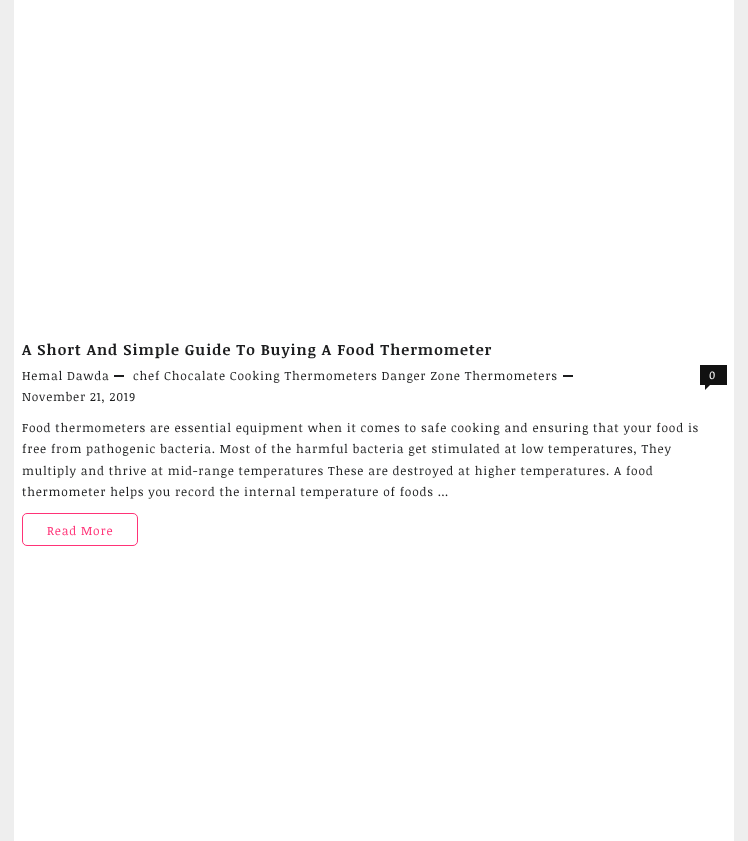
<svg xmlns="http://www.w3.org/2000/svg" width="748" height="841">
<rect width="100%" height="100%" fill="#eee"/>
<rect x="14" width="720" height="841" fill="#fff"/>
<text x="22" y="355" style="font-family:Noticia Text;font-size:15px;font-weight:bold;letter-spacing:1px;fill:#1c1d1e">A Short And Simple Guide To Buying A Food Thermometer</text>
<text x="22" y="380" style="font-family:Noticia Text;font-size:12px;letter-spacing:0.8px;fill:#1c1d1e">Hemal Dawda</text>
<rect x="114" y="375" width="10" height="2" fill="#1c1d1e"/>
<text x="133" y="380" style="font-family:Noticia Text;font-size:12px;letter-spacing:0.8px;fill:#1c1d1e">chef Chocalate Cooking Thermometers Danger Zone Thermometers</text>
<rect x="563" y="375" width="10" height="2" fill="#1c1d1e"/>
<text x="22" y="401" style="font-family:Noticia Text;font-size:12px;letter-spacing:0.8px;fill:#1c1d1e">November 21, 2019</text>
<rect x="700" y="365" width="27" height="20" fill="#111"/>
<text x="709" y="379" style="font-family:Noticia Text;font-size:11px;letter-spacing:0.8px;fill:#fff">0</text>
<path d="M705 390v-10l5 5z" fill="#111"/>
<text x="22" y="432" style="font-family:Noticia Text;font-size:12px;letter-spacing:0.8px;fill:#1c1d1e">Food thermometers are essential equipment when it comes to safe cooking and ensuring that your food is</text>
<text x="22" y="453" style="font-family:Noticia Text;font-size:12px;letter-spacing:0.8px;fill:#1c1d1e">free from pathogenic bacteria. Most of the harmful bacteria get stimulated at low temperatures, They</text>
<text x="22" y="475" style="font-family:Noticia Text;font-size:12px;letter-spacing:0.8px;fill:#1c1d1e">multiply and thrive at mid-range temperatures These are destroyed at higher temperatures. A food</text>
<text x="22" y="496" style="font-family:Noticia Text;font-size:12px;letter-spacing:0.8px;fill:#1c1d1e">thermometer helps you record the internal temperature of foods …</text>
<rect x="22.5" y="513.5" width="115" height="32" rx="4.5" fill="none" stroke="#f37"/>
<text x="47" y="535" style="font-family:Noticia Text;font-size:12px;letter-spacing:0.8px;fill:#f37">Read More</text>
</svg>
